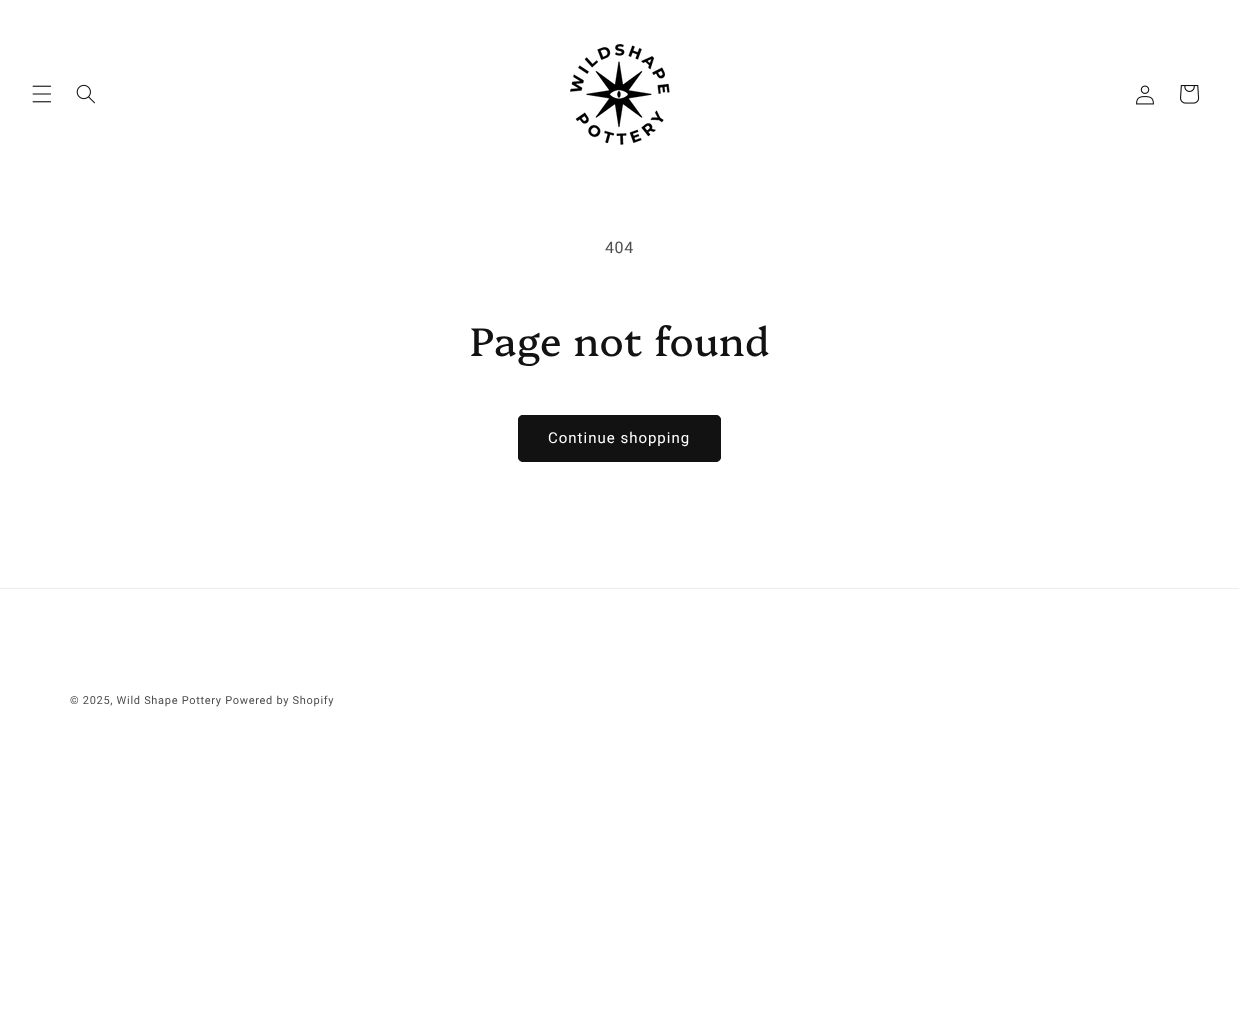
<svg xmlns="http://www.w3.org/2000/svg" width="1239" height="1022">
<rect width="100%" height="100%" fill="#fff"/>
<image x="32" y="85" width="20" height="18" href="media/1.png"/>
<image x="76" y="84" width="19" height="20" href="media/2.png"/>
<image x="570" y="44" width="100" height="101" href="media/3.png"/>
<image x="1136" y="85" width="18" height="20" href="media/4.png"/>
<image x="1180" y="85" width="20" height="19" href="media/5.png"/>
<text x="605" y="253" style="font-family:Roboto;font-size:16px;letter-spacing:0.6px;fill:#4d4d4d">404</text>
<text x="470" y="356" style="font-family:Platypi;font-size:40px;letter-spacing:0.6px;fill:#121212">Page not found</text>
<rect x="518" y="415" width="203" height="47" rx="5" fill="#121212"/>
<rect x="518.5" y="415.5" width="202" height="46" rx="4.5" fill="none" stroke="#121212"/>
<text x="548" y="443" style="font-family:Roboto;font-size:15px;letter-spacing:1px;fill:#fff">Continue shopping</text>
<rect y="588" width="1239" height="1" fill="#ececec"/>
<text x="70" y="704" style="font-family:Roboto;font-size:11px;letter-spacing:0.7px;fill:#4d4d4d">© 2025, Wild Shape Pottery Powered by Shopify</text>
</svg>
